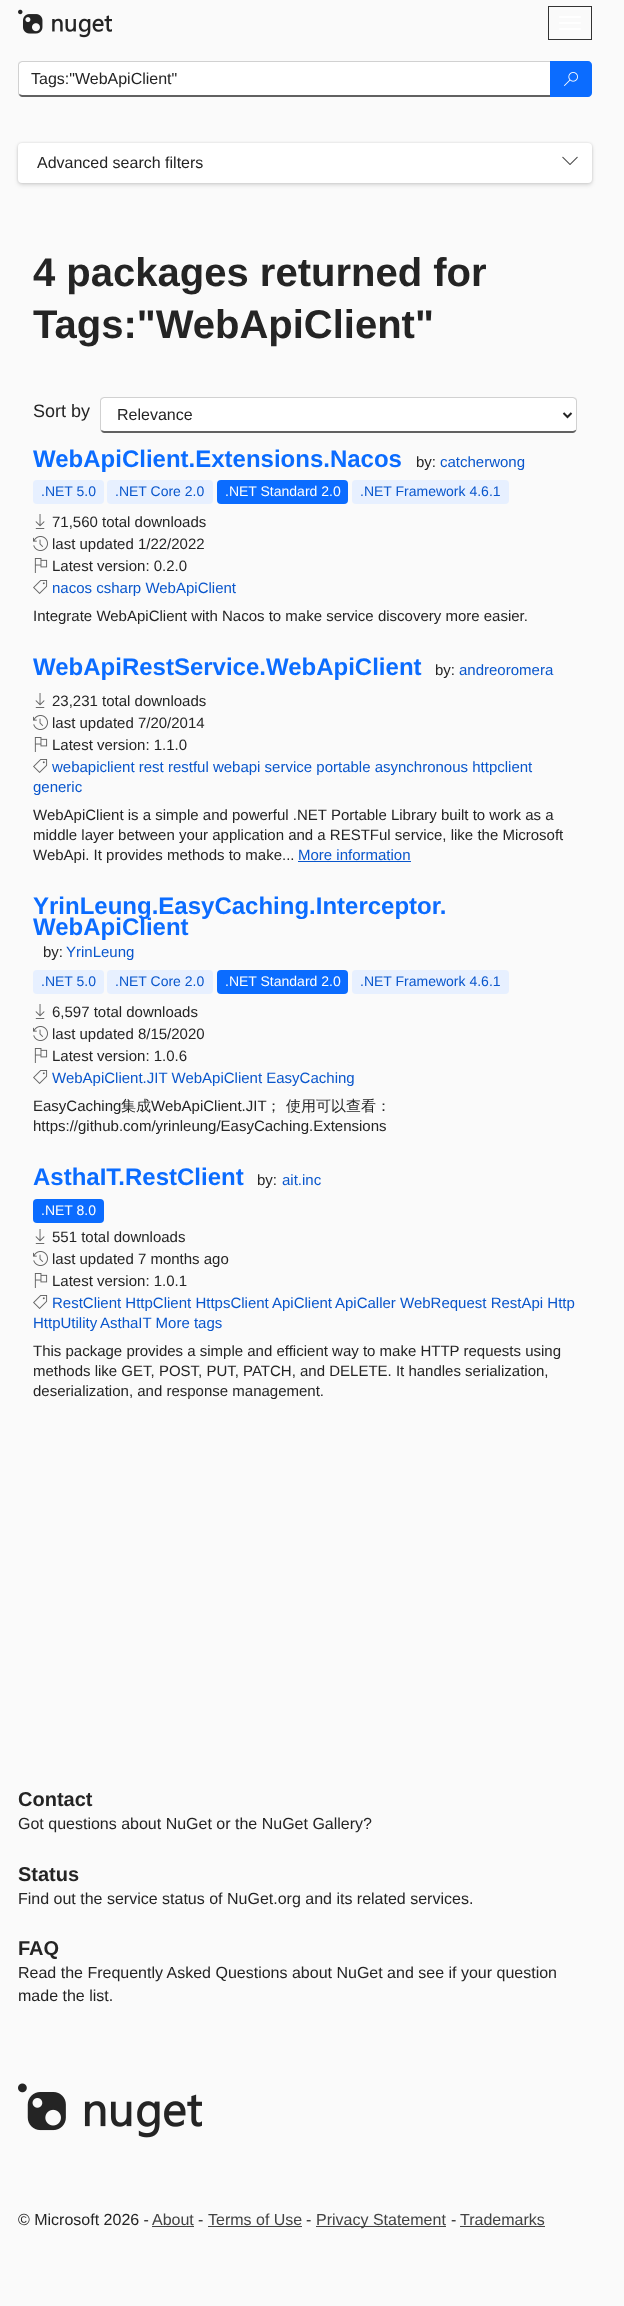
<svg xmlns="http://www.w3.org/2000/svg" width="624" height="2306">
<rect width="100%" height="100%" fill="#fafafa"/>
<image x="18" y="9" width="94" height="29" href="media/1.png"/>
<rect x="548.5" y="6.5" width="43" height="33" fill="none" stroke="#333"/>
<rect x="559" y="16" width="22" height="2" rx="1" fill="#fff"/>
<rect x="559" y="22" width="22" height="2" rx="1" fill="#fff"/>
<rect x="559" y="28" width="22" height="2" rx="1" fill="#fff"/>
<path d="M22 62h528v33h-528c-2 0-3-1-3-2v-28c0-2 1-3 3-3z" fill="#fff"/>
<path d="M22 61l-3 1l1 1l2-1h528l1-1z" fill="#d1d1d1"/>
<path d="M551 97l-1-2h-528l-3-1v1c1 1 2 2 3 2z" fill="#616161"/>
<path d="M18 65v28c0 1 .5 1.5 1 2.5l.5-1.5l-.5-1v-28.5l1-1.5l-1-1c-.5 1-1 2-1 3z" fill="#d1d1d1"/>
<text x="31" y="84" style="font-family:Liberation Sans;font-size:16px;fill:#242424">Tags:"WebApiClient"</text>
<path d="M550 61h38c2 0 4 2 4 4v28c0 2-2 4-4 4h-38z" fill="#0b6cff"/>
<image x="564" y="72" width="14" height="14" href="media/2.png"/>
<rect x="18" y="145" width="574" height="40" rx="4" fill="#00000024" filter="blur(2px)"/>
<rect x="18" y="143" width="574" height="40" rx="4" fill="#0000001f" filter="blur(1px)"/>
<rect x="18" y="143" width="574" height="40" rx="4" fill="#fff"/>
<text x="37" y="168" style="font-family:Liberation Sans;font-size:16px;fill:#242424">Advanced search filters</text>
<image x="562" y="156" width="16" height="9" href="media/3.png"/>
<text x="33" y="286" style="font-family:Liberation Sans;font-size:40px;font-weight:bold;fill:#242424">4 packages returned for</text>
<text x="33" y="338" style="font-family:Liberation Sans;font-size:40px;font-weight:bold;fill:#242424">Tags:"WebApiClient"</text>
<text x="33" y="417" style="font-family:Liberation Sans;font-size:18px;fill:#242424">Sort by</text>
<path d="M104 398h469c2 0 3 1 3 3v28c0 1-1 2-3 2h-469c-2 0-3-1-3-2v-28c0-2 1-3 3-3z" fill="#fff"/>
<path d="M104 397l-3 1l1 1l2-1h469l2 1l1-1l-3-1z" fill="#d1d1d1"/>
<path d="M577 429v-28c0-1-.5-2-1-3l-1 1l1 1.5v28.5l-.5 1l.5 1.5c.5-1 1-1.5 1-2.5z" fill="#d1d1d1"/>
<path d="M104 433h469c1 0 2-1 3-2v-1l-3 1h-469l-3-1v1c1 1 2 2 3 2z" fill="#616161"/>
<path d="M100 401v28c0 1 .5 1.5 1 2.5l.5-1.5l-.5-1v-28.5l1-1.5l-1-1c-.5 1-1 2-1 3z" fill="#d1d1d1"/>
<path d="M563.5 413l4 4l4-4" fill="none" stroke="#242424" stroke-width="2"/>
<text x="117" y="420" style="font-family:Liberation Sans;font-size:16px;fill:#242424">Relevance</text>
<text x="33" y="467" style="font-family:Liberation Sans;font-size:24px;font-weight:bold;fill:#0b6cff">WebApiClient.Extensions.Nacos</text>
<text x="416" y="467" style="font-family:Liberation Sans;font-size:15px;fill:#242424">by:</text>
<text x="440" y="467" style="font-family:Liberation Sans;font-size:15px;fill:#0956cc">catcherwong</text>
<rect x="33" y="480" width="71" height="24" rx="4" fill="#e7f0ff"/>
<text x="41" y="496" style="font-family:Liberation Sans;font-size:14px;fill:#0956cc">.NET 5.0</text>
<rect x="107" y="480" width="106" height="24" rx="4" fill="#e7f0ff"/>
<text x="115" y="496" style="font-family:Liberation Sans;font-size:14px;fill:#0956cc">.NET Core 2.0</text>
<rect x="217" y="480" width="131" height="24" rx="4" fill="#0b6cff"/>
<text x="225" y="496" style="font-family:Liberation Sans;font-size:14px;fill:#fff">.NET Standard 2.0</text>
<rect x="352" y="480" width="157" height="24" rx="4" fill="#e7f0ff"/>
<text x="360" y="496" style="font-family:Liberation Sans;font-size:14px;fill:#0956cc">.NET Framework 4.6.1</text>
<image x="35" y="514" width="10" height="15" href="media/4.png"/>
<text x="52" y="527" style="font-family:Liberation Sans;font-size:15px;fill:#242424">71,560 total downloads</text>
<image x="33" y="536" width="15" height="15" href="media/5.png"/>
<text x="52" y="549" style="font-family:Liberation Sans;font-size:15px;fill:#242424">last updated 1/22/2022</text>
<image x="34" y="558" width="14" height="15" href="media/6.png"/>
<text x="52" y="571" style="font-family:Liberation Sans;font-size:15px;fill:#242424">Latest version: 0.2.0</text>
<image x="33" y="580" width="15" height="14" href="media/7.png"/>
<text x="52" y="593" style="font-family:Liberation Sans;font-size:15px;fill:#0956cc">nacos csharp WebApiClient</text>
<text x="33" y="621" style="font-family:Liberation Sans;font-size:15px;fill:#242424">Integrate WebApiClient with Nacos to make service discovery more easier.</text>
<text x="33" y="675" style="font-family:Liberation Sans;font-size:24px;font-weight:bold;fill:#0b6cff">WebApiRestService.WebApiClient</text>
<text x="435" y="675" style="font-family:Liberation Sans;font-size:15px;fill:#242424">by:</text>
<text x="459" y="675" style="font-family:Liberation Sans;font-size:15px;fill:#0956cc">andreoromera</text>
<image x="35" y="693" width="10" height="15" href="media/4.png"/>
<text x="52" y="706" style="font-family:Liberation Sans;font-size:15px;fill:#242424">23,231 total downloads</text>
<image x="33" y="715" width="15" height="15" href="media/5.png"/>
<text x="52" y="728" style="font-family:Liberation Sans;font-size:15px;fill:#242424">last updated 7/20/2014</text>
<image x="34" y="737" width="14" height="15" href="media/6.png"/>
<text x="52" y="750" style="font-family:Liberation Sans;font-size:15px;fill:#242424">Latest version: 1.1.0</text>
<image x="33" y="759" width="15" height="14" href="media/7.png"/>
<text x="52" y="772" style="font-family:Liberation Sans;font-size:15px;fill:#0956cc">webapiclient rest restful webapi service portable asynchronous httpclient</text>
<text x="33" y="792" style="font-family:Liberation Sans;font-size:15px;fill:#0956cc">generic</text>
<text x="33" y="820" style="font-family:Liberation Sans;font-size:15px;fill:#242424">WebApiClient is a simple and powerful .NET Portable Library built to work as a</text>
<text x="33" y="840" style="font-family:Liberation Sans;font-size:15px;fill:#242424">middle layer between your application and a RESTFul service, like the Microsoft</text>
<text x="33" y="860" style="font-family:Liberation Sans;font-size:15px;fill:#242424">WebApi. It provides methods to make...</text>
<text x="298" y="860" style="font-family:Liberation Sans;font-size:15px;fill:#0956cc">More information</text>
<rect x="298" y="861" width="113" height="1" fill="#0956cc"/>
<text x="33" y="914" style="font-family:Liberation Sans;font-size:24px;font-weight:bold;fill:#0b6cff">YrinLeung.EasyCaching.Interceptor.</text>
<text x="33" y="935" style="font-family:Liberation Sans;font-size:24px;font-weight:bold;fill:#0b6cff">WebApiClient</text>
<text x="43" y="957" style="font-family:Liberation Sans;font-size:15px;fill:#242424">by:</text>
<text x="66" y="957" style="font-family:Liberation Sans;font-size:15px;fill:#0956cc">YrinLeung</text>
<rect x="33" y="970" width="71" height="24" rx="4" fill="#e7f0ff"/>
<text x="41" y="986" style="font-family:Liberation Sans;font-size:14px;fill:#0956cc">.NET 5.0</text>
<rect x="107" y="970" width="106" height="24" rx="4" fill="#e7f0ff"/>
<text x="115" y="986" style="font-family:Liberation Sans;font-size:14px;fill:#0956cc">.NET Core 2.0</text>
<rect x="217" y="970" width="131" height="24" rx="4" fill="#0b6cff"/>
<text x="225" y="986" style="font-family:Liberation Sans;font-size:14px;fill:#fff">.NET Standard 2.0</text>
<rect x="352" y="970" width="157" height="24" rx="4" fill="#e7f0ff"/>
<text x="360" y="986" style="font-family:Liberation Sans;font-size:14px;fill:#0956cc">.NET Framework 4.6.1</text>
<image x="35" y="1004" width="10" height="15" href="media/4.png"/>
<text x="52" y="1017" style="font-family:Liberation Sans;font-size:15px;fill:#242424">6,597 total downloads</text>
<image x="33" y="1026" width="15" height="15" href="media/5.png"/>
<text x="52" y="1039" style="font-family:Liberation Sans;font-size:15px;fill:#242424">last updated 8/15/2020</text>
<image x="34" y="1048" width="14" height="15" href="media/6.png"/>
<text x="52" y="1061" style="font-family:Liberation Sans;font-size:15px;fill:#242424">Latest version: 1.0.6</text>
<image x="33" y="1070" width="15" height="14" href="media/7.png"/>
<text x="52" y="1083" style="font-family:Liberation Sans;font-size:15px;fill:#0956cc">WebApiClient.JIT WebApiClient EasyCaching</text>
<text x="33" y="1111" style="font-family:Liberation Sans;font-size:15px;fill:#242424">EasyCaching</text>
<text x="121" y="1111" style="font-family:WenQuanYi Zen Hei;font-size:15px;font-weight:500;fill:#242424">集成</text>
<text x="151" y="1111" style="font-family:Liberation Sans;font-size:15px;fill:#242424">WebApiClient.JIT</text>
<text x="266" y="1111" style="font-family:WenQuanYi Zen Hei;font-size:15px;font-weight:500;fill:#242424">；</text>
<text x="286" y="1111" style="font-family:WenQuanYi Zen Hei;font-size:15px;font-weight:500;fill:#242424">使用可以查看：</text>
<text x="33" y="1131" style="font-family:Liberation Sans;font-size:15px;fill:#242424">https://github.com/yrinleung/EasyCaching.Extensions</text>
<text x="33" y="1185" style="font-family:Liberation Sans;font-size:24px;font-weight:bold;fill:#0b6cff">AsthaIT.RestClient</text>
<text x="257" y="1185" style="font-family:Liberation Sans;font-size:15px;fill:#242424">by:</text>
<text x="282" y="1185" style="font-family:Liberation Sans;font-size:15px;fill:#0956cc">ait.inc</text>
<rect x="33" y="1199" width="71" height="24" rx="4" fill="#0b6cff"/>
<text x="41" y="1215" style="font-family:Liberation Sans;font-size:14px;fill:#fff">.NET 8.0</text>
<image x="35" y="1229" width="10" height="15" href="media/4.png"/>
<text x="52" y="1242" style="font-family:Liberation Sans;font-size:15px;fill:#242424">551 total downloads</text>
<image x="33" y="1251" width="15" height="15" href="media/5.png"/>
<text x="52" y="1264" style="font-family:Liberation Sans;font-size:15px;fill:#242424">last updated 7 months ago</text>
<image x="34" y="1273" width="14" height="15" href="media/6.png"/>
<text x="52" y="1286" style="font-family:Liberation Sans;font-size:15px;fill:#242424">Latest version: 1.0.1</text>
<image x="33" y="1295" width="15" height="14" href="media/7.png"/>
<text x="52" y="1308" style="font-family:Liberation Sans;font-size:15px;fill:#0956cc">RestClient HttpClient HttpsClient</text>
<text x="272" y="1308" style="font-family:Liberation Sans;font-size:15px;fill:#0956cc">ApiClient</text>
<text x="335" y="1308" style="font-family:Liberation Sans;font-size:15px;fill:#0956cc">ApiCaller WebRequest RestApi Http</text>
<text x="33" y="1328" style="font-family:Liberation Sans;font-size:15px;fill:#0956cc">HttpUtility</text>
<text x="100" y="1328" style="font-family:Liberation Sans;font-size:15px;fill:#0956cc">AsthaIT More tags</text>
<text x="33" y="1356" style="font-family:Liberation Sans;font-size:15px;fill:#242424">This package provides a simple and efficient way to make HTTP requests using</text>
<text x="33" y="1376" style="font-family:Liberation Sans;font-size:15px;fill:#242424">methods like GET, POST, PUT, PATCH, and DELETE. It handles serialization,</text>
<text x="33" y="1396" style="font-family:Liberation Sans;font-size:15px;fill:#242424">deserialization, and response management.</text>
<text x="18" y="1806" style="font-family:Liberation Sans;font-size:20px;font-weight:bold;fill:#242424">Contact</text>
<text x="18" y="1829" style="font-family:Liberation Sans;font-size:16px;fill:#242424">Got questions about NuGet or the NuGet Gallery?</text>
<text x="18" y="1881" style="font-family:Liberation Sans;font-size:20px;font-weight:bold;fill:#242424">Status</text>
<text x="18" y="1904" style="font-family:Liberation Sans;font-size:16px;fill:#242424">Find out the service status of NuGet.org and its related services.</text>
<text x="18" y="1955" style="font-family:Liberation Sans;font-size:20px;font-weight:bold;fill:#242424">FAQ</text>
<text x="18" y="1978" style="font-family:Liberation Sans;font-size:16px;fill:#242424">Read the Frequently Asked Questions about NuGet and see if your question</text>
<text x="18" y="2001" style="font-family:Liberation Sans;font-size:16px;fill:#242424">made the list.</text>
<image x="18" y="2083" width="184" height="55" href="media/8.png"/>
<text x="18" y="2225" style="font-family:Liberation Sans;font-size:16px;fill:#242424">© Microsoft 2026 -</text>
<text x="152" y="2225" style="font-family:Liberation Sans;font-size:16px;fill:#424242">About</text>
<rect x="152" y="2226" width="42" height="1" fill="#424242"/>
<text x="198" y="2225" style="font-family:Liberation Sans;font-size:16px;fill:#242424">-</text>
<text x="208" y="2225" style="font-family:Liberation Sans;font-size:16px;fill:#424242">Terms of Use</text>
<rect x="208" y="2226" width="94" height="1" fill="#424242"/>
<text x="306" y="2225" style="font-family:Liberation Sans;font-size:16px;fill:#242424">-</text>
<rect x="316" y="2226" width="130" height="1" fill="#424242"/>
<text x="316" y="2225" style="font-family:Liberation Sans;font-size:16px;fill:#424242">Privacy Statement</text>
<text x="451" y="2225" style="font-family:Liberation Sans;font-size:16px;fill:#242424">-</text>
<text x="460" y="2225" style="font-family:Liberation Sans;font-size:16px;fill:#424242">Trademarks</text>
<rect x="460" y="2226" width="85" height="1" fill="#424242"/>
</svg>
